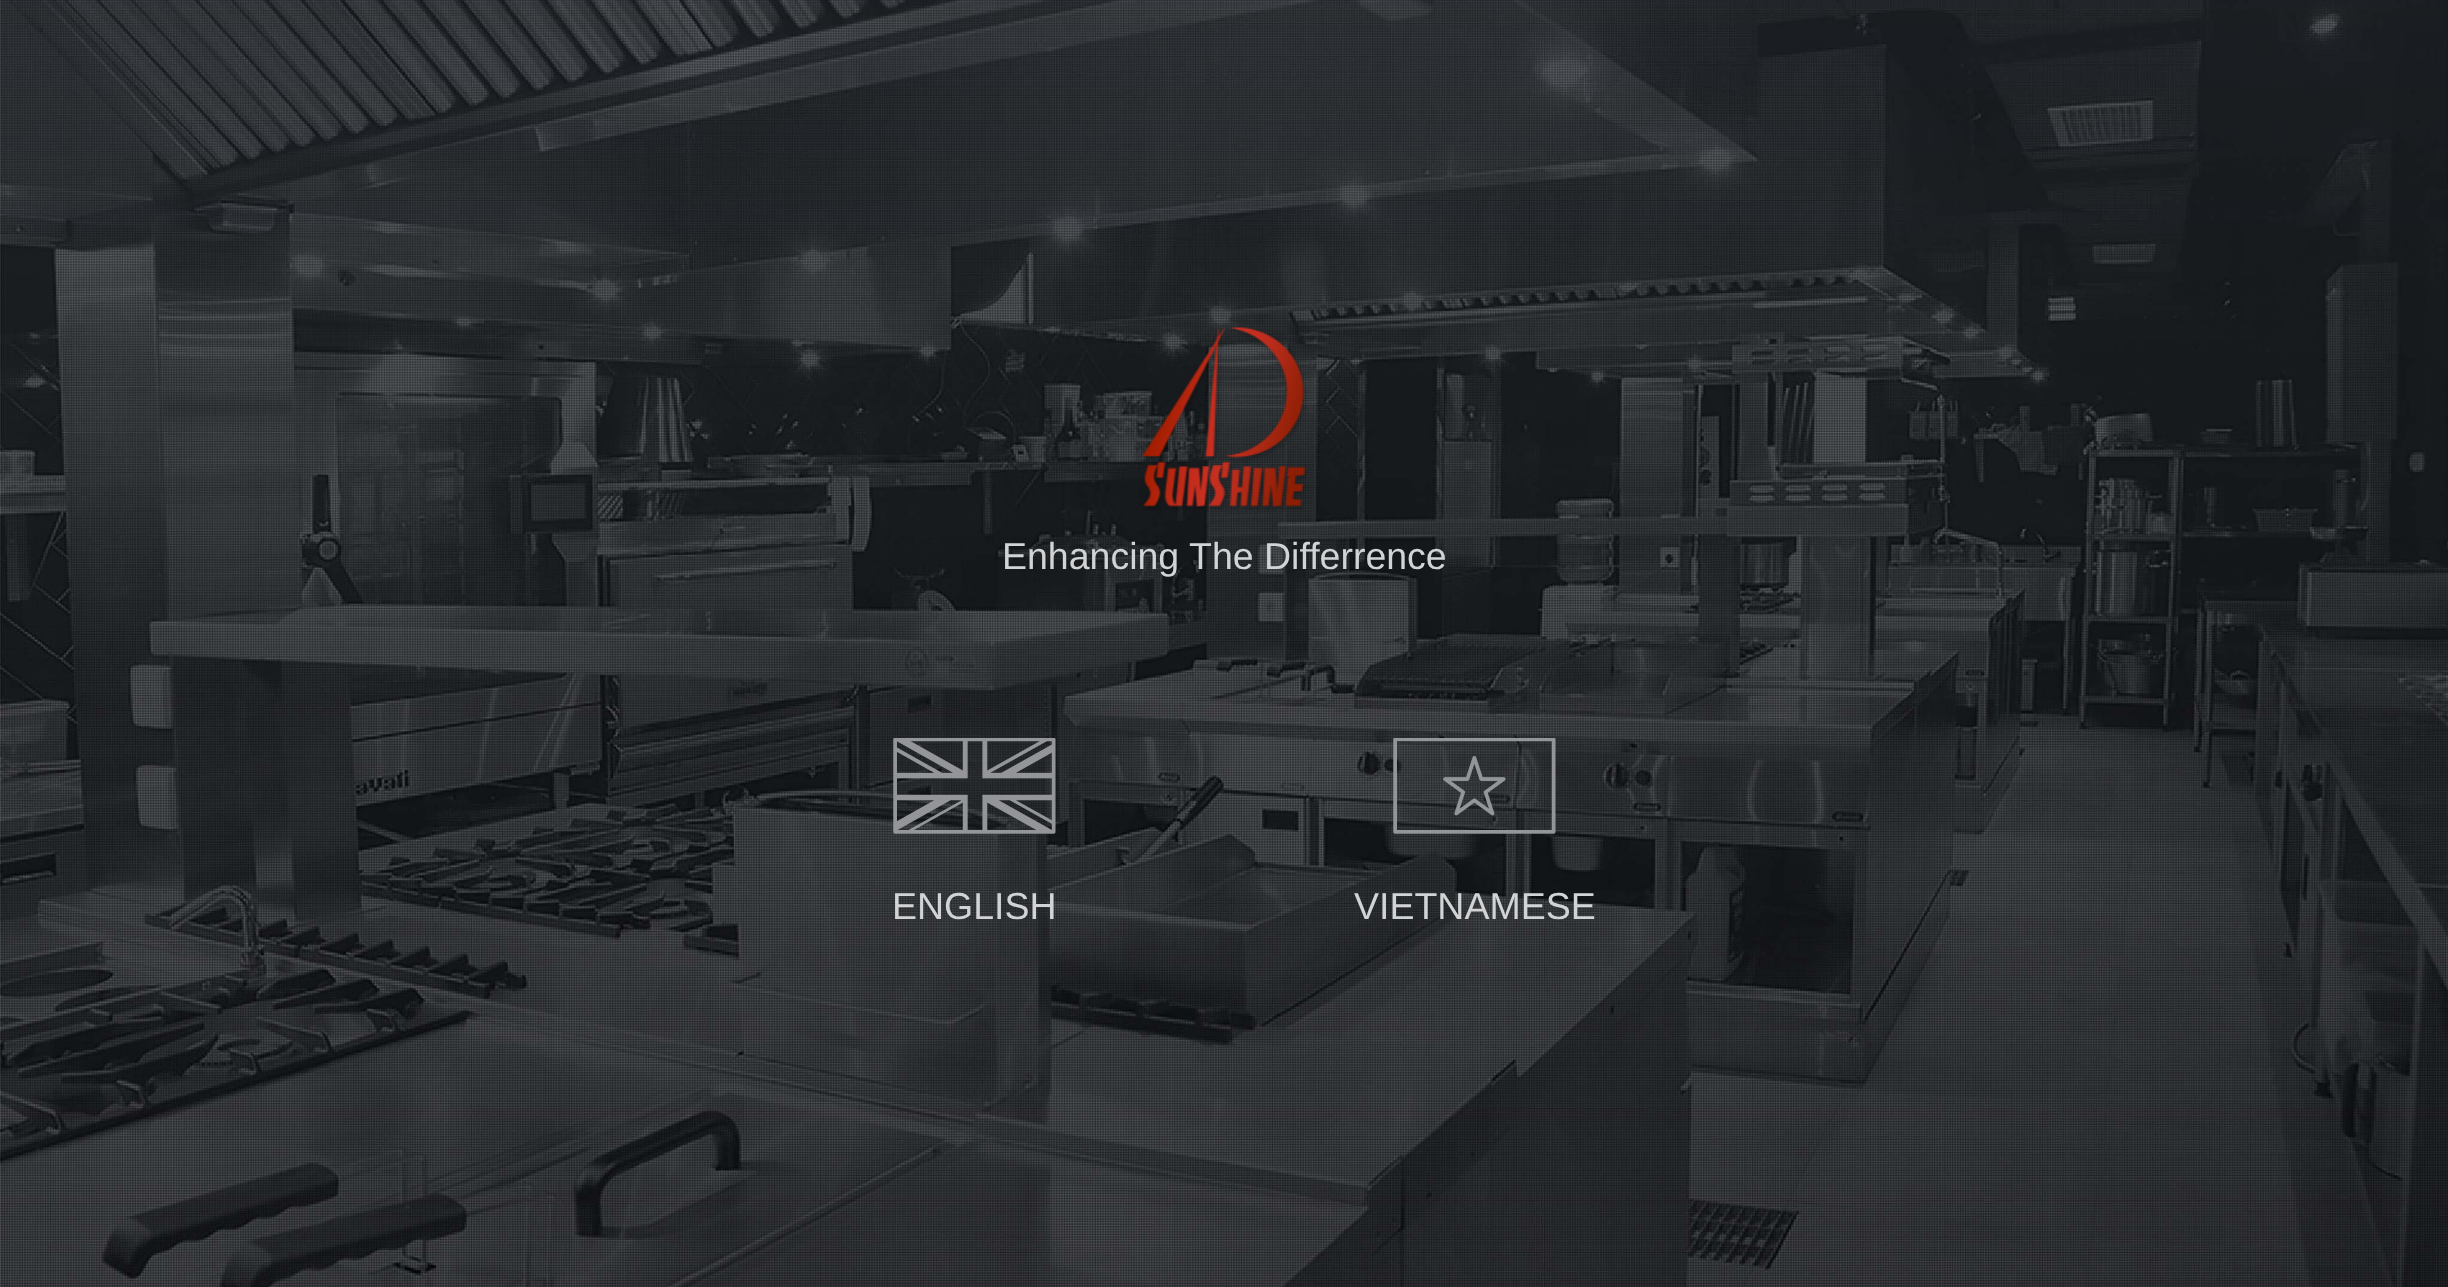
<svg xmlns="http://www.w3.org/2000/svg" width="2448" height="1287">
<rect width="100%" height="100%" fill="#fff"/>
<image x="0" y="0" width="2448" height="1287" href="media/1.png"/>
<image x="1142" y="327" width="165" height="183" href="media/2.png"/>
<text x="1002" y="569" style="font-family:Liberation Sans;font-size:37.5px;fill:#d2d3d4">Enhancing The Differrence</text>
<image x="893" y="738" width="163" height="96" href="media/3.png"/>
<text x="892" y="919" style="font-family:Liberation Sans;font-size:37.5px;fill:#d2d3d4">ENGLISH</text>
<image x="1393" y="738" width="163" height="96" href="media/4.png"/>
<text x="1354" y="919" style="font-family:Liberation Sans;font-size:37.5px;fill:#d2d3d4">VIETNAMESE</text>
</svg>
